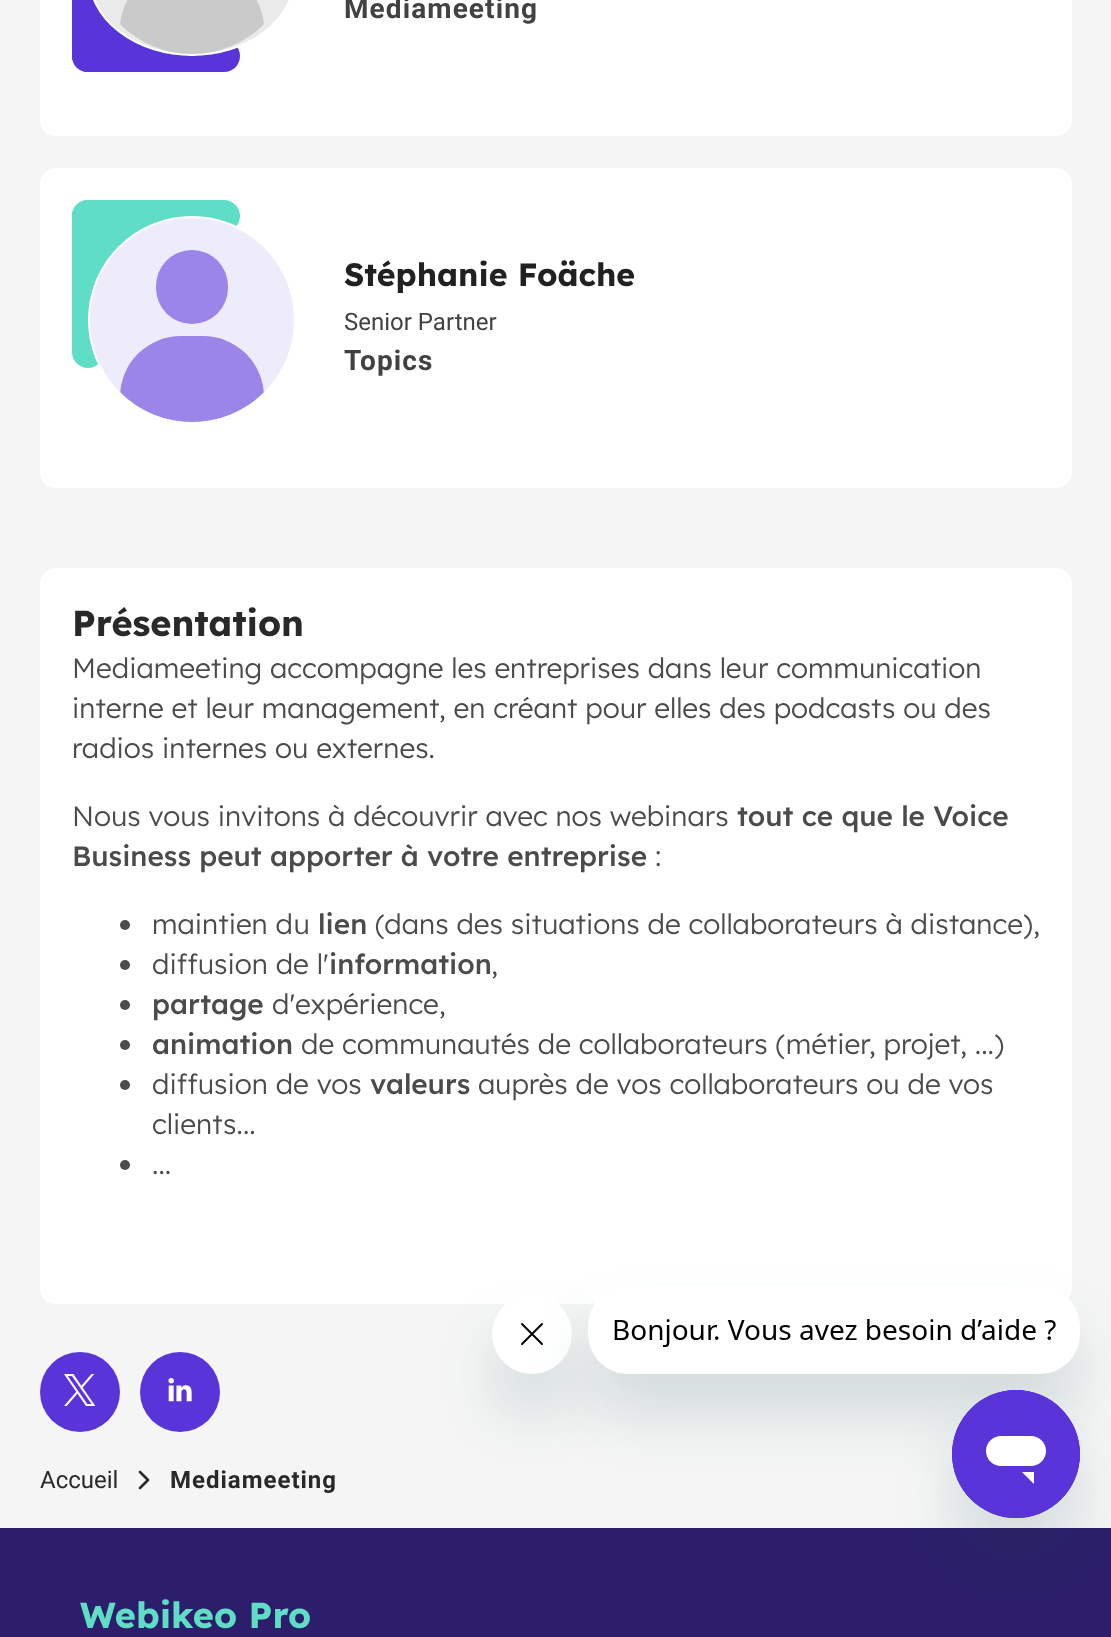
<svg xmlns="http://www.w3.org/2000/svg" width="1111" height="1637">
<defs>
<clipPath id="clip1"><rect x="90" y="-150" width="204" height="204" rx="102"/></clipPath>
<clipPath id="clip2"><rect x="90" y="218" width="204" height="204" rx="102"/></clipPath>
<clipPath id="clip3"><path d="M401 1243h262v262h-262zm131 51c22 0 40 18 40 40c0 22-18 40-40 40c-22 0-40-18-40-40c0-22 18-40 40-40z" clip-rule="evenodd"/></clipPath>
<clipPath id="clip4"><path d="M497 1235h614v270h-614zm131 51h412c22 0 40 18 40 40v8c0 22-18 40-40 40h-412c-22 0-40-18-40-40v-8c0-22 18-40 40-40z" clip-rule="evenodd"/></clipPath>
</defs>
<rect width="100%" height="100%" fill="#f5f5f5"/>
<rect x="40" y="-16" width="1032" height="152" rx="16" fill="#fff"/>
<path d="M72 56c0-9 7-16 16-16h136c9 0 16 7 16 16c0 9-7 16-16 16h-136c-9 0-16-7-16-16z" fill="#5934d9"/>
<path d="M72 56v-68c0-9 7-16 16-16h68c9 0 16 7 16 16v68c0 9-7 16-16 16h-68c-9 0-16-7-16-16z" fill="#5934d9"/>
<rect x="89" y="-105" width="206" height="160" rx="103" fill="#eaeaea" stroke="#fff" stroke-width="2"/>
<g clip-path="url(#clip1)">
<rect x="120" y="-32" width="144" height="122" rx="61" fill="#cacaca"/>
</g>
<text x="344" y="18" style="font-family:Roboto;font-size:28px;font-weight:bold;letter-spacing:1.1px;fill:#424242">Mediameeting</text>
<rect x="40" y="168" width="1032" height="320" rx="16" fill="#fff"/>
<rect x="72" y="200" width="32" height="168" rx="16" fill="#5fddc7"/>
<rect x="72" y="200" width="168" height="32" rx="16" fill="#5fddc7"/>
<rect x="72" y="200" width="100" height="100" rx="16" fill="#5fddc7"/>
<circle cx="192" cy="320" r="103" fill="#eeebfb" stroke="#fff" stroke-width="2"/>
<rect x="156" y="250" width="72" height="74" rx="36" fill="#9b85e8"/>
<g clip-path="url(#clip2)">
<rect x="120" y="336" width="144" height="122" rx="61" fill="#9b85e8"/>
</g>
<text x="344" y="286" style="font-family:Lexend;font-size:32px;font-weight:bold;fill:#212121">Stéphanie Foäche</text>
<text x="344" y="330" style="font-family:Roboto;font-size:24px;fill:#424242">Senior Partner</text>
<text x="344" y="370" style="font-family:Roboto;font-size:28px;font-weight:bold;letter-spacing:1.1px;fill:#424242">Topics</text>
<rect x="40" y="568" width="1032" height="736" rx="16" fill="#fff"/>
<text x="72" y="636" style="font-family:Lexend;font-size:36px;font-weight:bold;fill:#292929">Présentation</text>
<text x="72" y="678" style="font-family:Lexend;font-size:28px;font-weight:300;fill:#4b4b4b">Mediameeting accompagne les entreprises dans leur communication</text>
<text x="72" y="718" style="font-family:Lexend;font-size:28px;font-weight:300;fill:#4b4b4b">interne et leur management, en créant pour elles des podcasts ou des</text>
<text x="72" y="758" style="font-family:Lexend;font-size:28px;font-weight:300;fill:#4b4b4b">radios internes ou externes.</text>
<text x="72" y="826" style="font-family:Lexend;font-size:28px;font-weight:300;fill:#4b4b4b">Nous vous invitons à découvrir avec nos webinars</text>
<text x="737" y="826" style="font-family:Lexend;font-size:28px;font-weight:500;fill:#4b4b4b">tout ce que le Voice</text>
<text x="72" y="866" style="font-family:Lexend;font-size:28px;font-weight:500;fill:#4b4b4b">Business peut apporter à votre entreprise</text>
<text x="655" y="866" style="font-family:Lexend;font-size:28px;font-weight:300;fill:#4b4b4b">:</text>
<circle cx="125" cy="925" r="5" fill="#4b4b4b"/>
<text x="152" y="934" style="font-family:Lexend;font-size:28px;font-weight:300;fill:#4b4b4b">maintien du</text>
<text x="318" y="934" style="font-family:Lexend;font-size:28px;font-weight:500;fill:#4b4b4b">lien</text>
<text x="375" y="934" style="font-family:Lexend;font-size:28px;font-weight:300;fill:#4b4b4b">(dans des situations de collaborateurs à distance),</text>
<circle cx="125" cy="965" r="5" fill="#4b4b4b"/>
<text x="152" y="974" style="font-family:Lexend;font-size:28px;font-weight:300;fill:#4b4b4b">diffusion de l'</text>
<text x="329" y="974" style="font-family:Lexend;font-size:28px;font-weight:500;fill:#4b4b4b">information</text>
<text x="491" y="974" style="font-family:Lexend;font-size:28px;font-weight:300;fill:#4b4b4b">,</text>
<circle cx="125" cy="1005" r="5" fill="#4b4b4b"/>
<text x="152" y="1014" style="font-family:Lexend;font-size:28px;font-weight:500;fill:#4b4b4b">partage</text>
<text x="272" y="1014" style="font-family:Lexend;font-size:28px;font-weight:300;fill:#4b4b4b">d'expérience,</text>
<circle cx="125" cy="1045" r="5" fill="#4b4b4b"/>
<text x="152" y="1054" style="font-family:Lexend;font-size:28px;font-weight:500;fill:#4b4b4b">animation</text>
<text x="301" y="1054" style="font-family:Lexend;font-size:28px;font-weight:300;fill:#4b4b4b">de communautés de collaborateurs (métier, projet, ...)</text>
<circle cx="125" cy="1085" r="5" fill="#4b4b4b"/>
<text x="152" y="1094" style="font-family:Lexend;font-size:28px;font-weight:300;fill:#4b4b4b">diffusion de vos</text>
<text x="370" y="1094" style="font-family:Lexend;font-size:28px;font-weight:500;fill:#4b4b4b">valeurs</text>
<text x="478" y="1094" style="font-family:Lexend;font-size:28px;font-weight:300;fill:#4b4b4b">auprès de vos collaborateurs ou de vos</text>
<text x="152" y="1134" style="font-family:Lexend;font-size:28px;font-weight:300;fill:#4b4b4b">clients...</text>
<circle cx="125" cy="1165" r="5" fill="#4b4b4b"/>
<text x="152" y="1174" style="font-family:Lexend;font-size:28px;font-weight:300;fill:#4b4b4b">...</text>
<circle cx="80" cy="1392" r="40" fill="#5934d9"/>
<image x="64" y="1374" width="32" height="32" href="media/1.png"/>
<circle cx="180" cy="1392" r="40" fill="#5934d9"/>
<image x="168" y="1378" width="24" height="24" href="media/2.png"/>
<text x="40" y="1488" style="font-family:Roboto;font-size:24px;fill:#292929">Accueil</text>
<image x="138" y="1470" width="12" height="20" href="media/3.png"/>
<text x="170" y="1488" style="font-family:Roboto;font-size:24px;font-weight:bold;letter-spacing:1px;fill:#292929">Mediameeting</text>
<rect y="1528" width="1111" height="109" fill="#2c1e6a"/>
<text x="80" y="1628" style="font-family:Lexend;font-size:36px;font-weight:bold;fill:#5fddc7">Webikeo Pro</text>
<g clip-path="url(#clip3)">
<rect x="492" y="1334" width="80" height="80" rx="40" fill="#17494d26" filter="blur(30px)"/>
</g>
<image x="492" y="1304" width="80" height="70" href="media/5.png"/>
<g clip-path="url(#clip4)">
<rect x="588" y="1326" width="492" height="88" rx="40" fill="#17494d26" filter="blur(30px)"/>
</g>
<image x="588" y="1298" width="492" height="76" href="media/4.png"/>
<rect x="952" y="1430" width="128" height="128" rx="64" fill="#17494d26" filter="blur(30px)"/>
<image x="952" y="1390" width="128" height="128" href="media/6.png"/>
</svg>
